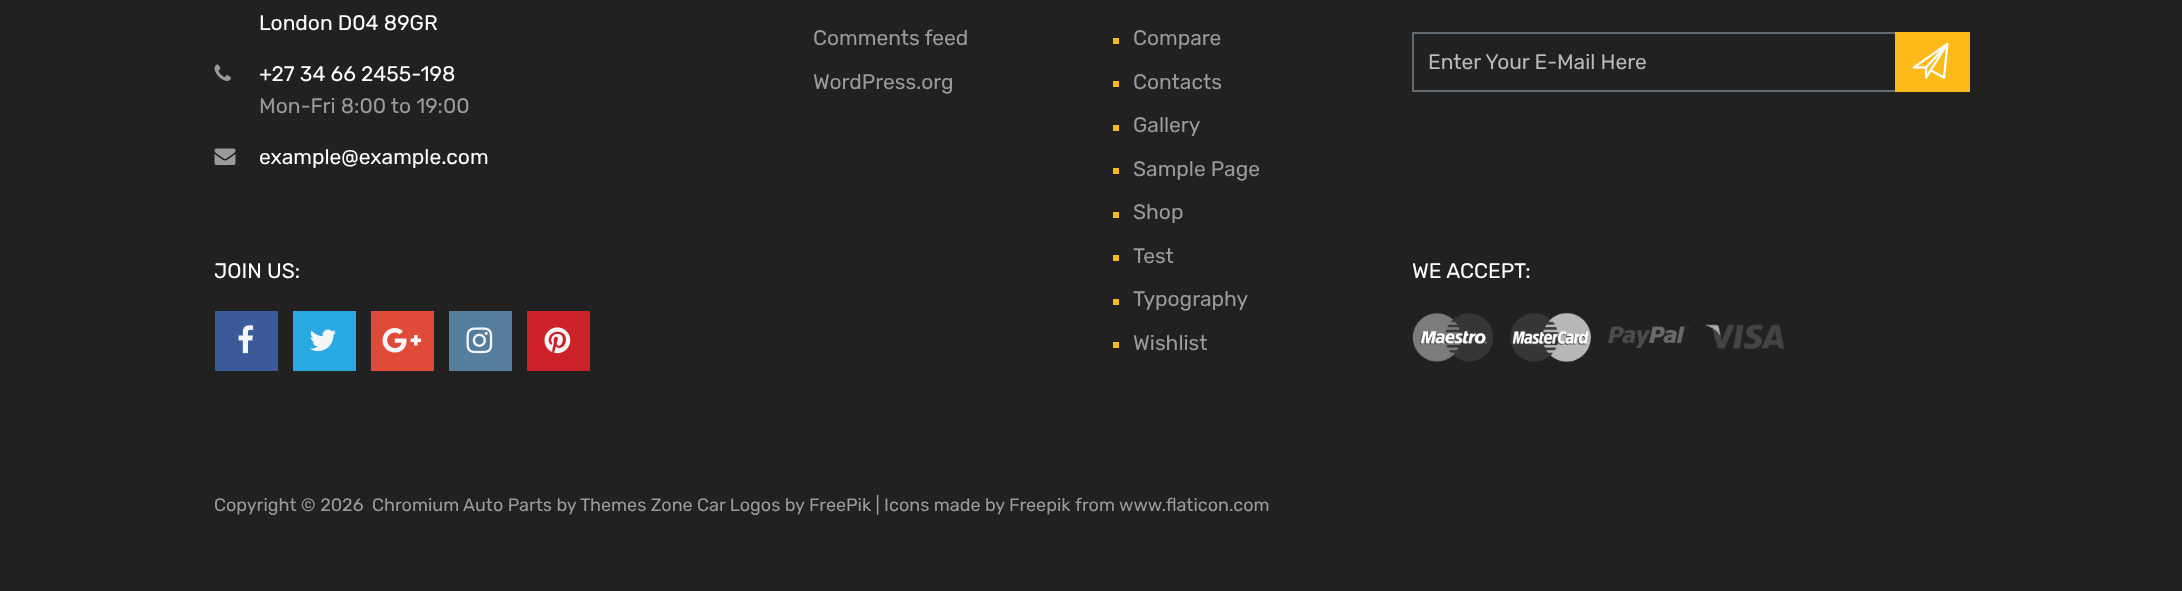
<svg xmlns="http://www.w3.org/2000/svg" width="2182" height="591">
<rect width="100%" height="100%" fill="#212121"/>
<text x="259" y="30" style="font-family:Rubik;font-size:21px;fill:#fff">London D04 89GR</text>
<image x="214" y="64" width="17" height="17" href="media/1.png"/>
<text x="259" y="81" style="font-family:Rubik;font-size:21px;fill:#fff">+27 34 66 2455-198</text>
<text x="259" y="113" style="font-family:Rubik;font-size:21px;fill:#9a9a9a">Mon-Fri 8:00 to 19:00</text>
<image x="214" y="148" width="22" height="17" href="media/2.png"/>
<text x="259" y="164" style="font-family:Rubik;font-size:21px;fill:#fff">example@example.com</text>
<text x="214" y="278" style="font-family:Rubik;font-size:21px;fill:#fff">JOIN US:</text>
<rect x="215" y="311" width="63" height="60" fill="#3b5a9a"/>
<image x="238" y="325" width="16" height="29" href="media/3.png"/>
<rect x="293" y="311" width="63" height="60" fill="#28a9e2"/>
<image x="310" y="329" width="26" height="22" href="media/4.png"/>
<rect x="371" y="311" width="63" height="60" fill="#e04a39"/>
<image x="382" y="328" width="40" height="25" href="media/5.png"/>
<rect x="449" y="311" width="63" height="60" fill="#567d9c"/>
<image x="466" y="327" width="27" height="27" href="media/6.png"/>
<rect x="527" y="311" width="63" height="60" fill="#cc2129"/>
<image x="544" y="327" width="27" height="27" href="media/7.png"/>
<text x="813" y="45" style="font-family:Rubik;font-size:21px;fill:#9a9a9a">Comments feed</text>
<text x="813" y="89" style="font-family:Rubik;font-size:21px;fill:#9a9a9a">WordPress.org</text>
<rect x="1113" y="38" width="6" height="6" fill="#fdb819"/>
<text x="1133" y="45" style="font-family:Rubik;font-size:21px;fill:#9a9a9a">Compare</text>
<rect x="1113" y="81" width="6" height="6" fill="#fdb819"/>
<text x="1133" y="89" style="font-family:Rubik;font-size:21px;fill:#9a9a9a">Contacts</text>
<rect x="1113" y="125" width="6" height="6" fill="#fdb819"/>
<text x="1133" y="132" style="font-family:Rubik;font-size:21px;fill:#9a9a9a">Gallery</text>
<rect x="1113" y="168" width="6" height="6" fill="#fdb819"/>
<text x="1133" y="176" style="font-family:Rubik;font-size:21px;fill:#9a9a9a">Sample Page</text>
<rect x="1113" y="212" width="6" height="6" fill="#fdb819"/>
<text x="1133" y="219" style="font-family:Rubik;font-size:21px;fill:#9a9a9a">Shop</text>
<rect x="1113" y="255" width="6" height="6" fill="#fdb819"/>
<text x="1133" y="263" style="font-family:Rubik;font-size:21px;fill:#9a9a9a">Test</text>
<rect x="1113" y="299" width="6" height="6" fill="#fdb819"/>
<text x="1133" y="306" style="font-family:Rubik;font-size:21px;fill:#9a9a9a">Typography</text>
<rect x="1113" y="342" width="6" height="6" fill="#fdb819"/>
<text x="1133" y="350" style="font-family:Rubik;font-size:21px;fill:#9a9a9a">Wishlist</text>
<rect x="1413" y="33" width="556" height="58" fill="none" stroke="#626b72" stroke-width="2"/>
<text x="1428" y="69" style="font-family:Rubik;font-size:21px;fill:#b9b9b9">Enter Your E-Mail Here</text>
<rect x="1895" y="32" width="75" height="60" fill="#fdb819"/>
<image x="1912" y="42" width="37" height="37" href="media/8.png"/>
<text x="1412" y="278" style="font-family:Rubik;font-size:21px;fill:#fff">WE ACCEPT:</text>
<image x="1412" y="313" width="81" height="49" href="media/9.png"/>
<image x="1510" y="312" width="81" height="51" href="media/10.png"/>
<image x="1608" y="326" width="81" height="22" href="media/11.png"/>
<image x="1705" y="324" width="80" height="25" href="media/12.png"/>
<text x="214" y="511" style="font-family:Rubik;font-size:18px;fill:#9a9a9a">Copyright © 2026</text>
<text x="372" y="511" style="font-family:Rubik;font-size:18px;fill:#9a9a9a">Chromium Auto Parts by</text>
<text x="580" y="511" style="font-family:Rubik;font-size:18px;fill:#9a9a9a">Themes Zone Car Logos by FreePik | Icons made by Freepik</text>
<text x="1075" y="511" style="font-family:Rubik;font-size:18px;fill:#9a9a9a">from</text>
<text x="1119" y="511" style="font-family:Rubik;font-size:18px;fill:#9a9a9a">www.flaticon.com</text>
</svg>
